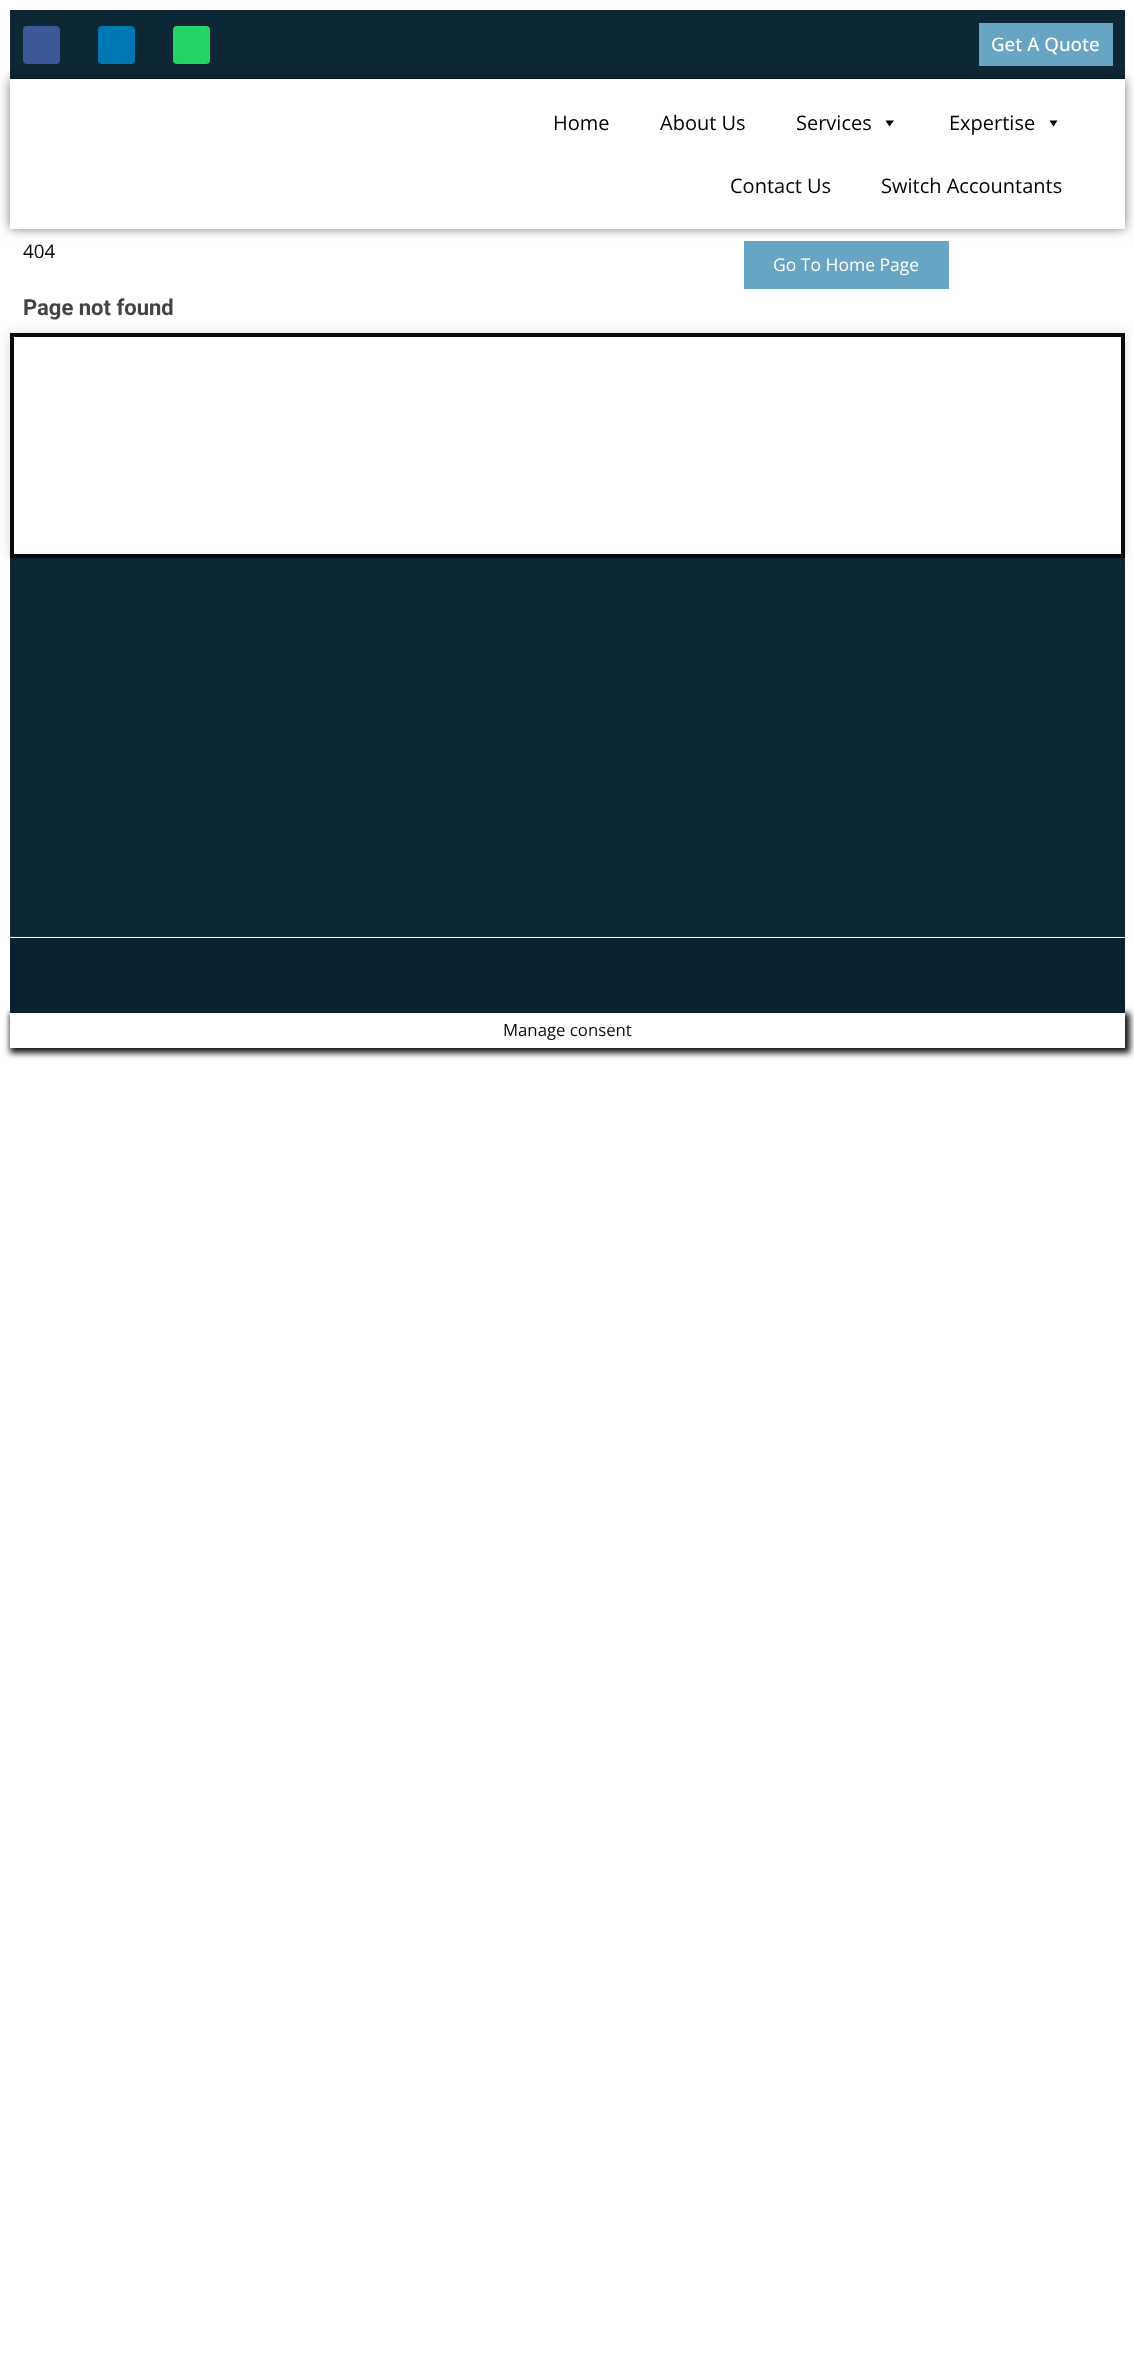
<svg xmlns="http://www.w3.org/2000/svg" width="1134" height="2364">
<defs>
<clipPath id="clip1"><path d="M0 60h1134v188h-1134zm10 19h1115v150h-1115z" clip-rule="evenodd"/></clipPath>
<clipPath id="clip2"><path d="M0 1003h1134v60h-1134zm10 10h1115v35h-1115z" clip-rule="evenodd"/></clipPath>
</defs>
<rect width="100%" height="100%" fill="#fff"/>
<rect x="10" y="10" width="1115" height="69" fill="#0d2735"/>
<rect x="23" y="26" width="37" height="38" rx="4" fill="#3b5998"/>
<rect x="98" y="26" width="37" height="38" rx="4" fill="#0077b5"/>
<rect x="173" y="26" width="37" height="38" rx="4" fill="#25d366"/>
<rect x="979" y="23" width="134" height="43" fill="#68a4c4"/>
<text x="991" y="51" style="font-family:Open Sans;font-size:18.75px;font-weight:500;fill:#fff">Get A Quote</text>
<rect x="744" y="241" width="205" height="48" fill="#68a4c4"/>
<g clip-path="url(#clip1)">
<rect x="10" y="79" width="1115" height="150" fill="#00000080" filter="blur(6px)"/>
</g>
<text x="553" y="130" style="font-family:Open Sans;font-size:20px;fill:#000">Home</text>
<text x="660" y="130" style="font-family:Open Sans;font-size:20px;fill:#000">About Us</text>
<text x="796" y="130" style="font-family:Open Sans;font-size:20px;fill:#000">Services</text>
<path d="M894 120.5l-4.5 6l-4-6z" fill="#000"/>
<text x="949" y="130" style="font-family:Open Sans;font-size:20px;fill:#000">Expertise</text>
<path d="M1057.5 120.5l-4 6l-4-6z" fill="#000"/>
<text x="730" y="193" style="font-family:Open Sans;font-size:20px;fill:#000">Contact Us</text>
<text x="881" y="193" style="font-family:Open Sans;font-size:20px;fill:#000">Switch Accountants</text>
<text x="23" y="258" style="font-family:Open Sans;font-size:18.75px;fill:#0a0a0a">404</text>
<text x="23" y="315" style="font-family:Roboto;font-size:22px;font-weight:bold;fill:#444">Page not found</text>
<text x="773" y="271" style="font-family:Open Sans;font-size:17.5px;fill:#fff">Go To Home Page</text>
<rect x="10" y="333" width="1115" height="225" fill="#00000026" filter="blur(6px)"/>
<rect x="12" y="335" width="1111" height="221" fill="#fff" stroke="#0a0a0a" stroke-width="4"/>
<rect x="10" y="558" width="1115" height="378" fill="#0d2735"/>
<g clip-path="url(#clip2)">
<rect x="10" y="1013" width="1120" height="40" fill="#161616" filter="blur(3px)"/>
</g>
<rect x="10" y="938" width="1115" height="75" fill="#0b212d"/>
<rect x="10" y="936" width="1115" height="1" fill="#123649"/>
<text x="503" y="1036" style="font-family:Open Sans;font-size:16.75px;fill:#0a0a0a">Manage consent</text>
</svg>
